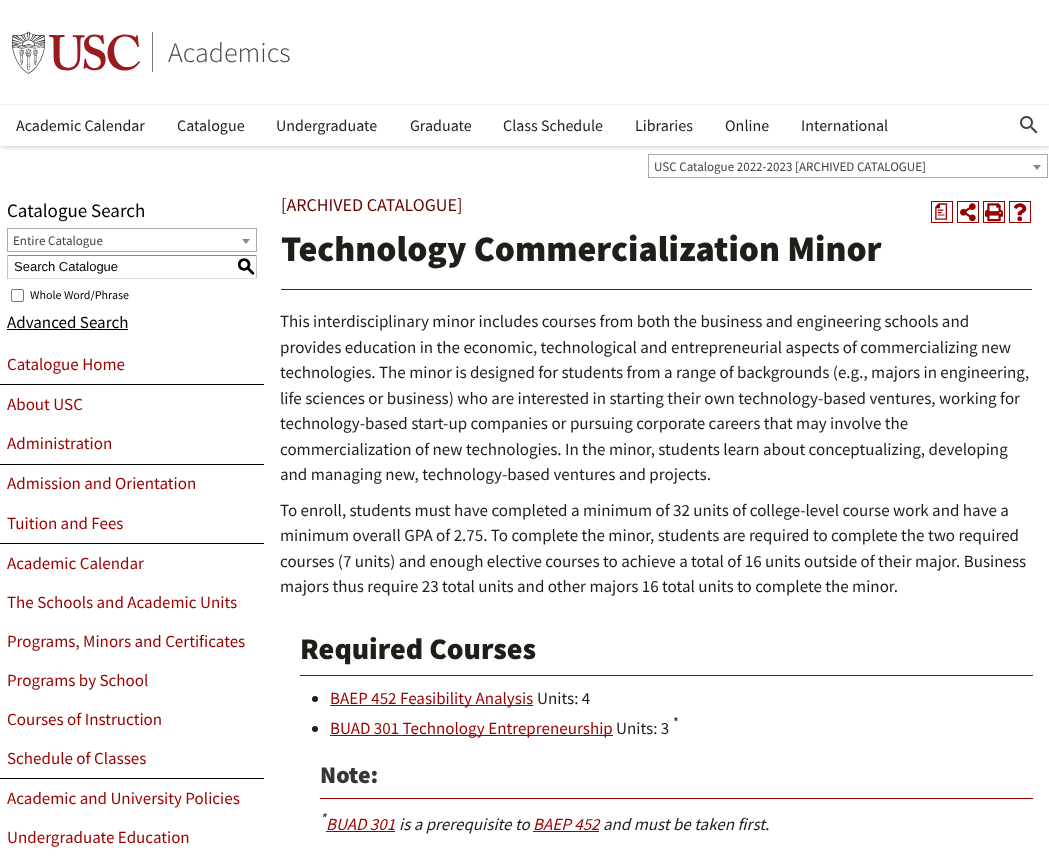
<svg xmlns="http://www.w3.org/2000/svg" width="1049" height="857">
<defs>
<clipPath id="clip1"><rect x="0" y="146" width="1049" height="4"/></clipPath>
</defs>
<rect width="100%" height="100%" fill="#fff"/>
<g clip-path="url(#clip1)">
<rect x="1" y="1" width="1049" height="146" fill="#00000033" filter="blur(2.5px)"/>
</g>
<image x="12" y="31" width="128" height="43" href="media/1.png"/>
<rect x="152" y="32" width="1" height="40" fill="#77766f"/>
<text x="168" y="62" style="font-family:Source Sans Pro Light;font-size:28px;font-weight:300;fill:#44433c">Academics</text>
<rect y="104" width="1049" height="1" fill="#eee"/>
<text x="16" y="131" style="font-family:Source Sans Pro;font-size:16px;fill:#1f1e18">Academic Calendar</text>
<text x="177" y="131" style="font-family:Source Sans Pro;font-size:16px;fill:#1f1e18">Catalogue</text>
<text x="276" y="131" style="font-family:Source Sans Pro;font-size:16px;fill:#1f1e18">Undergraduate</text>
<text x="410" y="131" style="font-family:Source Sans Pro;font-size:16px;fill:#1f1e18">Graduate</text>
<text x="503" y="131" style="font-family:Source Sans Pro;font-size:16px;fill:#1f1e18">Class Schedule</text>
<text x="635" y="131" style="font-family:Source Sans Pro;font-size:16px;fill:#1f1e18">Libraries</text>
<text x="725" y="131" style="font-family:Source Sans Pro;font-size:16px;fill:#1f1e18">Online</text>
<text x="801" y="131" style="font-family:Source Sans Pro;font-size:16px;fill:#1f1e18">International</text>
<image x="1020" y="116" width="18" height="18" href="media/2.png"/>
<rect x="648.5" y="154.5" width="399" height="23" fill="none" stroke="#aaa"/>
<text x="654" y="171" style="font-family:Source Sans Pro;font-size:13px;fill:#444">USC Catalogue 2022-2023 [ARCHIVED CATALOGUE]</text>
<path d="M1033 165h8l-4 5z" fill="#888"/>
<text x="7" y="217" style="font-family:Source Sans Pro;font-size:19px;fill:#000">Catalogue Search</text>
<rect x="7.5" y="228.5" width="249" height="23" fill="none" stroke="#aaa"/>
<text x="13" y="245" style="font-family:Source Sans Pro;font-size:13px;fill:#444">Entire Catalogue</text>
<path d="M242 239h8l-4 5z" fill="#888"/>
<rect x="7" y="255" width="250" height="1" fill="#848484"/>
<rect x="256" y="255" width="1" height="24" fill="#c1c1c1"/>
<rect x="7" y="278" width="250" height="1" fill="#e1e1e1"/>
<rect x="7" y="255" width="1" height="24" fill="#c1c1c1"/>
<text x="14" y="271" style="font-family:Liberation Sans;font-size:13px;fill:#000">Search Catalogue</text>
<text x="237" y="272" style="font-family:'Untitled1';font-size:18px;font-weight:500;fill:#000">S</text>
<rect x="11.5" y="289.5" width="12" height="12" rx="1.5" fill="none" stroke="#767676"/>
<text x="30" y="299" style="font-family:Source Sans Pro;font-size:12px;fill:#000">Whole Word/Phrase</text>
<text x="7" y="328" style="font-family:Source Sans Pro;font-size:17px;fill:#000">Advanced Search</text>
<rect x="7" y="329" width="121" height="1" fill="#000"/>
<text x="7" y="370" style="font-family:Source Sans Pro;font-size:17px;fill:#900">Catalogue Home</text>
<rect y="384" width="264" height="1" fill="#000"/>
<text x="7" y="410" style="font-family:Source Sans Pro;font-size:17px;fill:#900">About USC</text>
<text x="7" y="449" style="font-family:Source Sans Pro;font-size:17px;fill:#900">Administration</text>
<rect y="464" width="264" height="1" fill="#000"/>
<text x="7" y="489" style="font-family:Source Sans Pro;font-size:17px;fill:#900">Admission and Orientation</text>
<text x="7" y="529" style="font-family:Source Sans Pro;font-size:17px;fill:#900">Tuition and Fees</text>
<rect y="543" width="264" height="1" fill="#000"/>
<text x="7" y="569" style="font-family:Source Sans Pro;font-size:17px;fill:#900">Academic Calendar</text>
<text x="7" y="608" style="font-family:Source Sans Pro;font-size:17px;fill:#900">The Schools and Academic Units</text>
<text x="7" y="647" style="font-family:Source Sans Pro;font-size:17px;fill:#900">Programs, Minors and Certificates</text>
<text x="7" y="686" style="font-family:Source Sans Pro;font-size:17px;fill:#900">Programs by School</text>
<text x="7" y="725" style="font-family:Source Sans Pro;font-size:17px;fill:#900">Courses of Instruction</text>
<text x="7" y="764" style="font-family:Source Sans Pro;font-size:17px;fill:#900">Schedule of Classes</text>
<rect y="778" width="264" height="1" fill="#000"/>
<text x="7" y="804" style="font-family:Source Sans Pro;font-size:17px;fill:#900">Academic and University Policies</text>
<text x="7" y="843" style="font-family:Source Sans Pro;font-size:17px;fill:#900">Undergraduate Education</text>
<text x="281" y="211" style="font-family:Source Sans Pro;font-size:18px;fill:#600">[ARCHIVED CATALOGUE]</text>
<rect x="931.5" y="201.5" width="21" height="21" fill="none" stroke="#900"/>
<text x="932" y="217" style="font-family:'Untitled1';font-size:18px;font-weight:500;fill:#900">a</text>
<rect x="957.5" y="201.5" width="21" height="21" fill="none" stroke="#900"/>
<image x="960" y="203" width="16" height="19" href="media/3.png"/>
<rect x="983.5" y="201.5" width="21" height="21" fill="none" stroke="#900"/>
<image x="985" y="203" width="18" height="19" href="media/4.png"/>
<rect x="1009.5" y="201.5" width="21" height="21" fill="none" stroke="#900"/>
<image x="1014" y="203" width="13" height="19" href="media/5.png"/>
<text x="281" y="261" style="font-family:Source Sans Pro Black;font-size:36px;font-weight:900;fill:#1f1e18">Technology Commercialization Minor</text>
<rect x="281" y="289" width="751" height="1" fill="#900"/>
<text x="280" y="327" style="font-family:Source Sans Pro;font-size:17px;fill:#1f1e18">This interdisciplinary minor includes courses from both the business and engineering schools and</text>
<text x="280" y="353" style="font-family:Source Sans Pro;font-size:17px;fill:#1f1e18">provides education in the economic, technological and entrepreneurial aspects of commercializing new</text>
<text x="280" y="378" style="font-family:Source Sans Pro;font-size:17px;fill:#1f1e18">technologies. The minor is designed for students from a range of backgrounds (e.g., majors in engineering,</text>
<text x="280" y="404" style="font-family:Source Sans Pro;font-size:17px;fill:#1f1e18">life sciences or business) who are interested in starting their own technology-based ventures, working for</text>
<text x="280" y="429" style="font-family:Source Sans Pro;font-size:17px;fill:#1f1e18">technology-based start-up companies or pursuing corporate careers that may involve the</text>
<text x="280" y="455" style="font-family:Source Sans Pro;font-size:17px;fill:#1f1e18">commercialization of new technologies. In the minor, students learn about conceptualizing, developing</text>
<text x="280" y="480" style="font-family:Source Sans Pro;font-size:17px;fill:#1f1e18">and managing new, technology-based ventures and projects.</text>
<text x="280" y="516" style="font-family:Source Sans Pro;font-size:17px;fill:#1f1e18">To enroll, students must have completed a minimum of 32 units of college-level course work and have a</text>
<text x="280" y="541" style="font-family:Source Sans Pro;font-size:17px;fill:#1f1e18">minimum overall GPA of 2.75. To complete the minor, students are required to complete the two required</text>
<text x="280" y="567" style="font-family:Source Sans Pro;font-size:17px;fill:#1f1e18">courses (7 units) and enough elective courses to achieve a total of 16 units outside of their major. Business</text>
<text x="280" y="592" style="font-family:Source Sans Pro;font-size:17px;fill:#1f1e18">majors thus require 23 total units and other majors 16 total units to complete the minor.</text>
<text x="300" y="659" style="font-family:Source Sans Pro Black;font-size:30px;font-weight:900;fill:#1f1e18">Required Courses</text>
<rect x="300" y="675" width="733" height="1" fill="#900"/>
<circle cx="315" cy="699" r="3" fill="#1f1e18"/>
<rect x="330" y="705" width="203" height="1" fill="#900"/>
<text x="330" y="704" style="font-family:Source Sans Pro;font-size:17px;fill:#900">BAEP 452 Feasibility Analysis</text>
<text x="537" y="704" style="font-family:Source Sans Pro;font-size:17px;fill:#1f1e18">Units: 4</text>
<text x="673" y="727" style="font-family:Source Sans Pro;font-size:14px;fill:#1f1e18">*</text>
<circle cx="315" cy="729" r="3" fill="#1f1e18"/>
<rect x="330" y="735" width="283" height="1" fill="#900"/>
<text x="330" y="734" style="font-family:Source Sans Pro;font-size:17px;fill:#900">BUAD 301 Technology Entrepreneurship</text>
<text x="616" y="734" style="font-family:Source Sans Pro;font-size:17px;fill:#1f1e18">Units: 3</text>
<text x="320" y="783" style="font-family:Source Sans Pro Black;font-size:24px;font-weight:900;fill:#363636">Note:</text>
<rect x="320" y="798" width="713" height="1" fill="#900"/>
<text x="320" y="823" style="font-family:Source Sans Pro;font-size:14px;font-style:italic;fill:#1f1e18">*</text>
<text x="326" y="830" style="font-family:Source Sans Pro;font-size:17px;font-style:italic;fill:#900">BUAD 301</text>
<rect x="326" y="831" width="69" height="1" fill="#900"/>
<text x="399" y="830" style="font-family:Source Sans Pro;font-size:17px;font-style:italic;fill:#1f1e18">is a prerequisite to</text>
<rect x="533" y="831" width="66" height="1" fill="#900"/>
<text x="533" y="830" style="font-family:Source Sans Pro;font-size:17px;font-style:italic;fill:#900">BAEP 452</text>
<text x="603" y="830" style="font-family:Source Sans Pro;font-size:17px;font-style:italic;fill:#1f1e18">and must be taken first.</text>
</svg>
